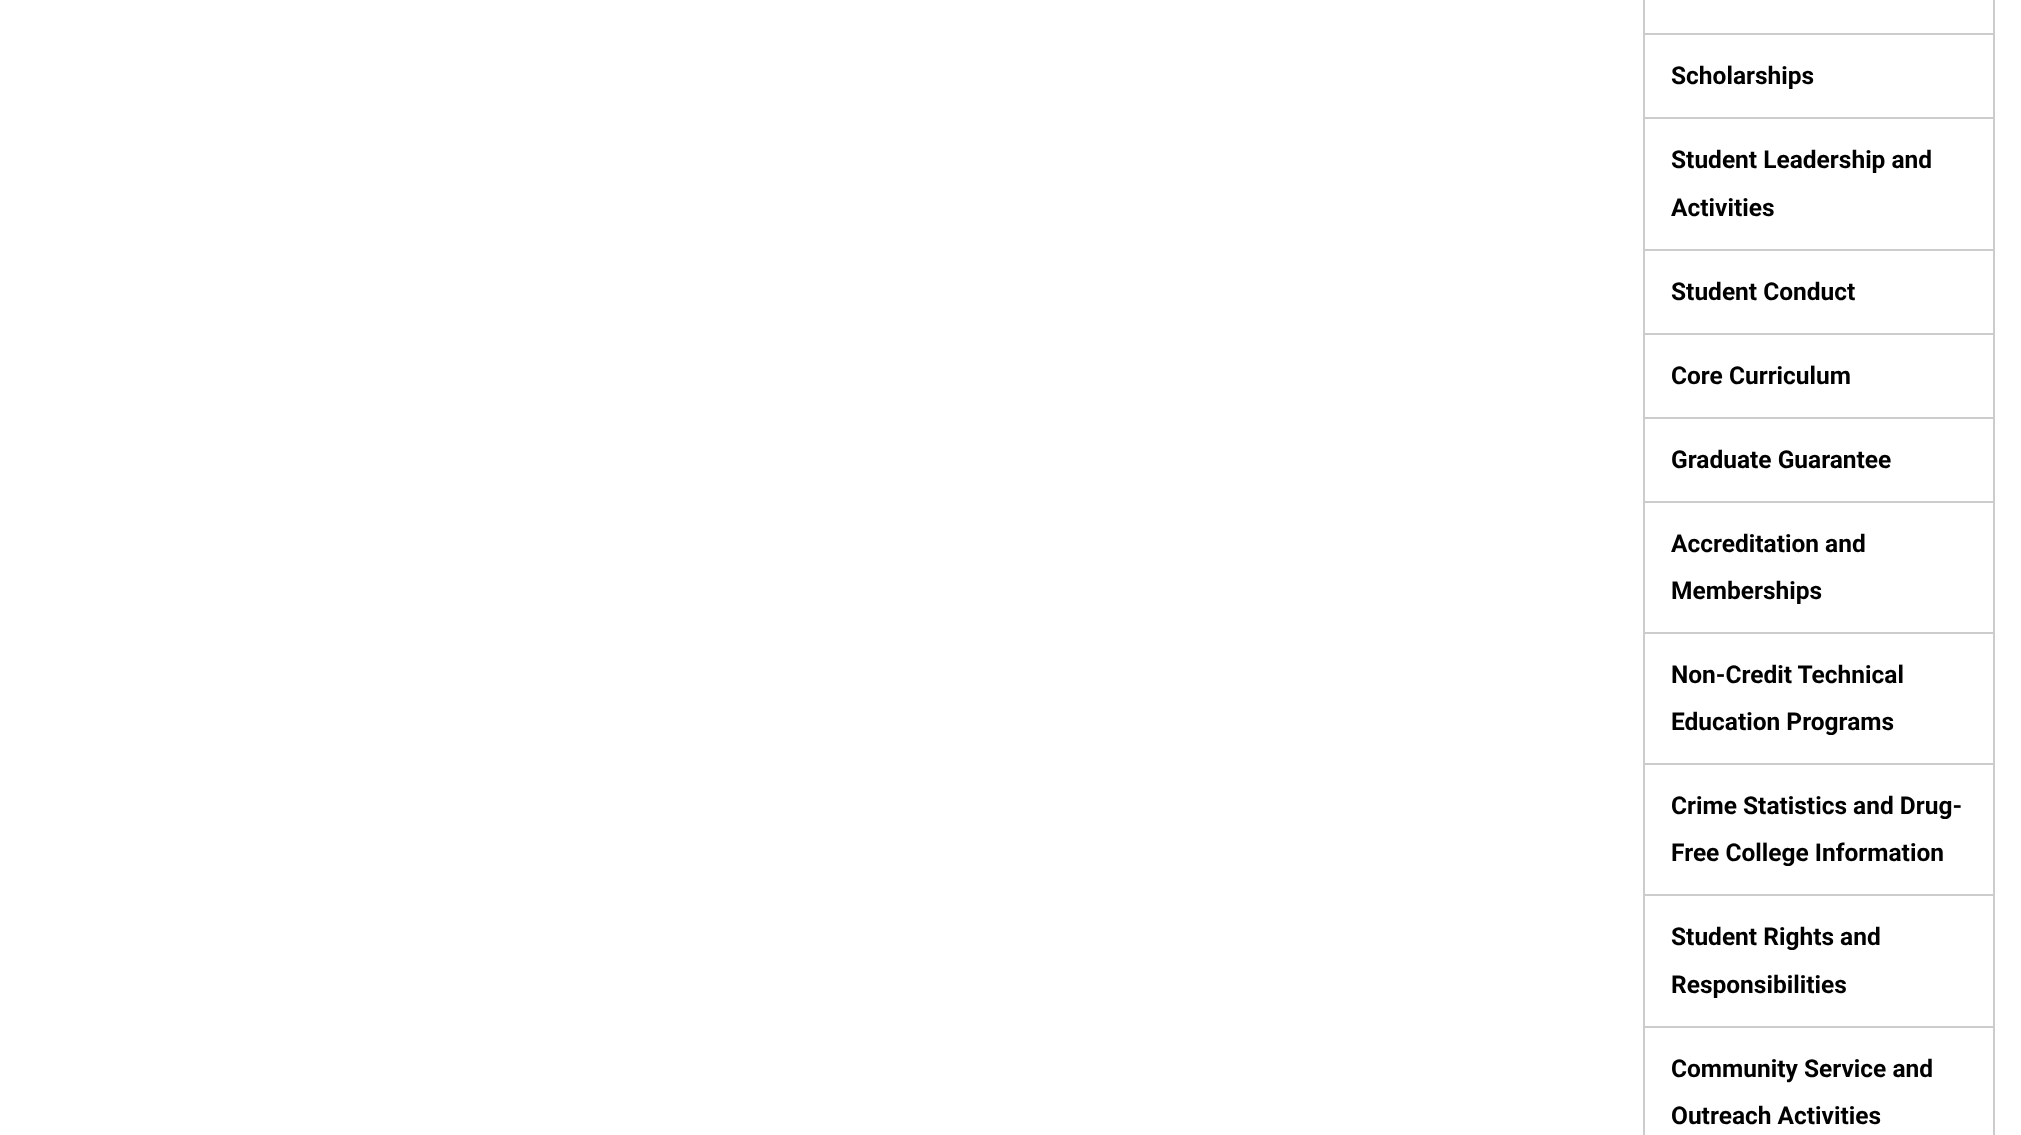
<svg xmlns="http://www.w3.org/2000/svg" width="2021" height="1135">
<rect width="100%" height="100%" fill="#fff"/>
<rect x="1993" width="2" height="1135" fill="#ccc"/>
<rect x="1643" width="2" height="1135" fill="#ccc"/>
<rect x="1645" y="33" width="348" height="2" fill="#ccc"/>
<rect x="1645" y="117" width="348" height="2" fill="#ccc"/>
<text x="1671" y="84" style="font-family:Roboto;font-size:24.5px;font-weight:bold;fill:#000">Scholarships</text>
<rect x="1645" y="249" width="348" height="2" fill="#ccc"/>
<text x="1671" y="168" style="font-family:Roboto;font-size:24.5px;font-weight:bold;fill:#000">Student Leadership and</text>
<text x="1671" y="216" style="font-family:Roboto;font-size:24.5px;font-weight:bold;fill:#000">Activities</text>
<rect x="1645" y="333" width="348" height="2" fill="#ccc"/>
<text x="1671" y="300" style="font-family:Roboto;font-size:24.5px;font-weight:bold;fill:#000">Student Conduct</text>
<rect x="1645" y="417" width="348" height="2" fill="#ccc"/>
<text x="1671" y="384" style="font-family:Roboto;font-size:24.5px;font-weight:bold;fill:#000">Core Curriculum</text>
<rect x="1645" y="501" width="348" height="2" fill="#ccc"/>
<text x="1671" y="468" style="font-family:Roboto;font-size:24.5px;font-weight:bold;fill:#000">Graduate Guarantee</text>
<rect x="1645" y="632" width="348" height="2" fill="#ccc"/>
<text x="1671" y="552" style="font-family:Roboto;font-size:24.5px;font-weight:bold;fill:#000">Accreditation and</text>
<text x="1671" y="599" style="font-family:Roboto;font-size:24.5px;font-weight:bold;fill:#000">Memberships</text>
<rect x="1645" y="763" width="348" height="2" fill="#ccc"/>
<text x="1671" y="683" style="font-family:Roboto;font-size:24.5px;font-weight:bold;fill:#000">Non-Credit Technical</text>
<text x="1671" y="730" style="font-family:Roboto;font-size:24.5px;font-weight:bold;fill:#000">Education Programs</text>
<rect x="1645" y="894" width="348" height="2" fill="#ccc"/>
<text x="1671" y="814" style="font-family:Roboto;font-size:24.5px;font-weight:bold;fill:#000">Crime Statistics and Drug-</text>
<text x="1671" y="861" style="font-family:Roboto;font-size:24.5px;font-weight:bold;fill:#000">Free College Information</text>
<rect x="1645" y="1026" width="348" height="2" fill="#ccc"/>
<text x="1671" y="945" style="font-family:Roboto;font-size:24.5px;font-weight:bold;fill:#000">Student Rights and</text>
<text x="1671" y="993" style="font-family:Roboto;font-size:24.5px;font-weight:bold;fill:#000">Responsibilities</text>
<text x="1671" y="1077" style="font-family:Roboto;font-size:24.5px;font-weight:bold;fill:#000">Community Service and</text>
<text x="1671" y="1124" style="font-family:Roboto;font-size:24.5px;font-weight:bold;fill:#000">Outreach Activities</text>
</svg>
